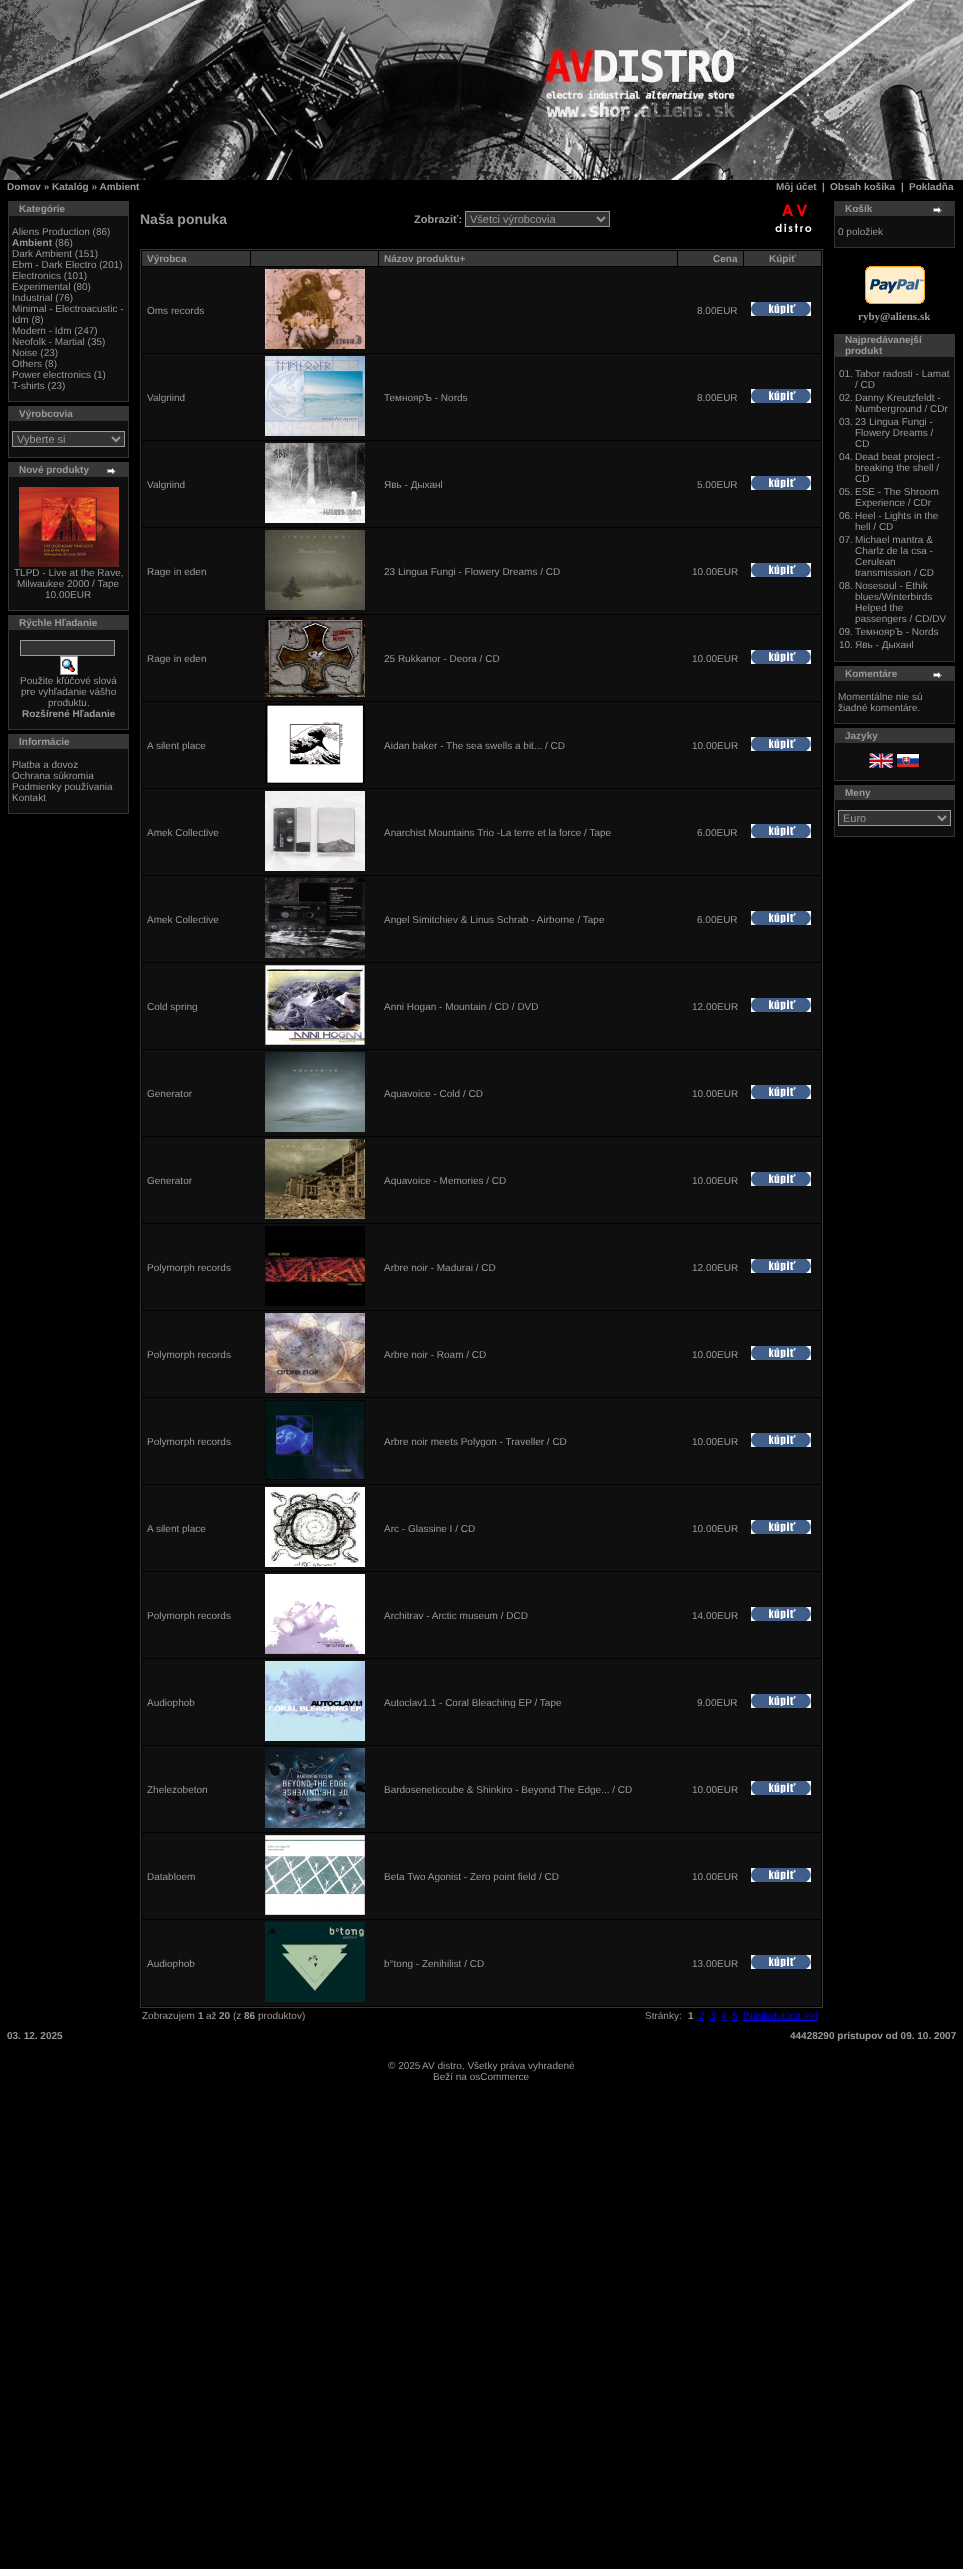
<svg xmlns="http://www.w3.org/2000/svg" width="963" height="2569">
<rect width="100%" height="100%" fill="#000"/>
<image x="0" y="0" width="963" height="180" href="media/1.png"/>
<text x="7" y="190" style="font-family:Liberation Sans;font-size:10px;font-weight:bold;fill:#999">Domov » Katalóg » Ambient</text>
<text x="776" y="190" style="font-family:Liberation Sans;font-size:10px;font-weight:bold;fill:#999">Môj účet</text>
<text x="822" y="190" style="font-family:Liberation Sans;font-size:10px;font-weight:bold;fill:#999">|</text>
<text x="830" y="190" style="font-family:Liberation Sans;font-size:10px;font-weight:bold;fill:#999">Obsah košíka</text>
<text x="901" y="190" style="font-family:Liberation Sans;font-size:10px;font-weight:bold;fill:#999">|</text>
<text x="909" y="190" style="font-family:Liberation Sans;font-size:10px;font-weight:bold;fill:#999">Pokladňa</text>
<rect x="8" y="201" width="11" height="14" fill="#323232"/>
<rect x="19" y="201" width="110" height="14" fill="#373737"/>
<text x="19" y="212" style="font-family:Liberation Sans;font-size:10px;font-weight:bold;fill:#999">Kategórie</text>
<rect x="8" y="215" width="121" height="187" fill="#333"/>
<rect x="9" y="216" width="119" height="185" fill="#0f0f0f"/>
<text x="12" y="235" style="font-family:Liberation Sans;font-size:10px;fill:#999">Aliens Production (86)</text>
<text x="12" y="246" style="font-family:Liberation Sans;font-size:10px;font-weight:bold;fill:#999">Ambient</text>
<text x="55" y="246" style="font-family:Liberation Sans;font-size:10px;fill:#999">(86)</text>
<text x="12" y="257" style="font-family:Liberation Sans;font-size:10px;fill:#999">Dark Ambient (151)</text>
<text x="12" y="268" style="font-family:Liberation Sans;font-size:10px;fill:#999">Ebm - Dark Electro (201)</text>
<text x="12" y="279" style="font-family:Liberation Sans;font-size:10px;fill:#999">Electronics (101)</text>
<text x="12" y="290" style="font-family:Liberation Sans;font-size:10px;fill:#999">Experimental (80)</text>
<text x="12" y="301" style="font-family:Liberation Sans;font-size:10px;fill:#999">Industrial (76)</text>
<text x="12" y="312" style="font-family:Liberation Sans;font-size:10px;fill:#999">Minimal - Electroacustic -</text>
<text x="12" y="323" style="font-family:Liberation Sans;font-size:10px;fill:#999">Idm (8)</text>
<text x="12" y="334" style="font-family:Liberation Sans;font-size:10px;fill:#999">Modern - Idm (247)</text>
<text x="12" y="345" style="font-family:Liberation Sans;font-size:10px;fill:#999">Neofolk - Martial (35)</text>
<text x="12" y="356" style="font-family:Liberation Sans;font-size:10px;fill:#999">Noise (23)</text>
<text x="12" y="367" style="font-family:Liberation Sans;font-size:10px;fill:#999">Others (8)</text>
<text x="12" y="378" style="font-family:Liberation Sans;font-size:10px;fill:#999">Power electronics (1)</text>
<text x="12" y="389" style="font-family:Liberation Sans;font-size:10px;fill:#999">T-shirts (23)</text>
<rect x="8" y="406" width="11" height="14" fill="#323232"/>
<rect x="19" y="406" width="110" height="14" fill="#373737"/>
<text x="19" y="417" style="font-family:Liberation Sans;font-size:10px;font-weight:bold;fill:#999">Výrobcovia</text>
<rect x="8" y="420" width="121" height="38" fill="#333"/>
<rect x="9" y="421" width="119" height="36" fill="#0f0f0f"/>
<rect x="12.5" y="431.5" width="112" height="15" fill="#333" stroke="#999"/>
<path d="M112 437l4 4l4-4" fill="none" stroke="#999" stroke-width="2"/>
<text x="17" y="443" style="font-family:Liberation Sans;font-size:11px;fill:#999">Vyberte si</text>
<rect x="8" y="462" width="11" height="14" fill="#323232"/>
<rect x="19" y="462" width="110" height="14" fill="#373737"/>
<text x="19" y="473" style="font-family:Liberation Sans;font-size:10px;font-weight:bold;fill:#999">Nové produkty</text>
<image x="107" y="468" width="9" height="6" href="media/2.png"/>
<rect x="8" y="476" width="121" height="135" fill="#333"/>
<rect x="9" y="477" width="119" height="133" fill="#0f0f0f"/>
<image x="19" y="487" width="100" height="80" href="media/3.png"/>
<text x="14" y="576" style="font-family:Liberation Sans;font-size:10px;fill:#999">TLPD - Live at the Rave,</text>
<text x="17" y="587" style="font-family:Liberation Sans;font-size:10px;fill:#999">Milwaukee 2000 / Tape</text>
<text x="45" y="598" style="font-family:Liberation Sans;font-size:10px;fill:#999">10.00EUR</text>
<rect x="8" y="615" width="11" height="14" fill="#323232"/>
<rect x="19" y="615" width="110" height="14" fill="#373737"/>
<text x="19" y="626" style="font-family:Liberation Sans;font-size:10px;font-weight:bold;fill:#999">Rýchle Hľadanie</text>
<rect x="8" y="629" width="121" height="101" fill="#333"/>
<rect x="9" y="630" width="119" height="99" fill="#0f0f0f"/>
<rect x="20.5" y="640.5" width="94" height="15" fill="#333" stroke="#999"/>
<rect x="60.5" y="656.5" width="17" height="18" fill="none" stroke="#999"/>
<image x="61" y="657" width="16" height="17" href="media/4.png"/>
<text x="20" y="684" style="font-family:Liberation Sans;font-size:10px;fill:#999">Použite kľúčové slová</text>
<text x="21" y="695" style="font-family:Liberation Sans;font-size:10px;fill:#999">pre vyhľadanie vášho</text>
<text x="48" y="706" style="font-family:Liberation Sans;font-size:10px;fill:#999">produktu.</text>
<text x="22" y="717" style="font-family:Liberation Sans;font-size:10px;font-weight:bold;fill:#999">Rozšírené Hľadanie</text>
<rect x="8" y="734" width="11" height="14" fill="#323232"/>
<rect x="19" y="734" width="110" height="14" fill="#373737"/>
<text x="19" y="745" style="font-family:Liberation Sans;font-size:10px;font-weight:bold;fill:#999">Informácie</text>
<rect x="8" y="748" width="121" height="66" fill="#333"/>
<rect x="9" y="749" width="119" height="64" fill="#0f0f0f"/>
<text x="12" y="768" style="font-family:Liberation Sans;font-size:10px;fill:#999">Platba a dovoz</text>
<text x="12" y="779" style="font-family:Liberation Sans;font-size:10px;fill:#999">Ochrana súkromia</text>
<text x="12" y="790" style="font-family:Liberation Sans;font-size:10px;fill:#999">Podmienky používania</text>
<text x="12" y="801" style="font-family:Liberation Sans;font-size:10px;fill:#999">Kontakt</text>
<text x="140" y="224" style="font-family:Liberation Sans;font-size:14px;font-weight:bold;fill:#999">Naša ponuka</text>
<text x="414" y="223" style="font-family:Liberation Sans;font-size:11px;font-weight:bold;fill:#999">Zobraziť:</text>
<rect x="465.5" y="211.5" width="144" height="15" fill="#333" stroke="#999"/>
<path d="M597 217l4 4l4-4" fill="none" stroke="#999" stroke-width="2"/>
<text x="470" y="223" style="font-family:Liberation Sans;font-size:11px;fill:#999">Všetci výrobcovia</text>
<image x="775" y="204" width="37" height="28" href="media/5.png"/>
<rect x="140.5" y="249.5" width="682" height="1758" fill="none" stroke="#373737"/>
<rect x="142" y="251" width="108" height="15" fill="#373737"/>
<text x="147" y="262" style="font-family:Liberation Sans;font-size:10px;font-weight:bold;fill:#999">Výrobca</text>
<rect x="251" y="251" width="127" height="15" fill="#373737"/>
<rect x="379" y="251" width="298" height="15" fill="#373737"/>
<text x="384" y="262" style="font-family:Liberation Sans;font-size:10px;font-weight:bold;fill:#999">Názov produktu+</text>
<rect x="678" y="251" width="65" height="15" fill="#373737"/>
<text x="713" y="262" style="font-family:Liberation Sans;font-size:10px;font-weight:bold;fill:#999">Cena</text>
<rect x="744" y="251" width="77" height="15" fill="#373737"/>
<text x="769" y="262" style="font-family:Liberation Sans;font-size:10px;font-weight:bold;fill:#999">Kúpiť</text>
<rect x="142" y="267" width="679" height="86" fill="#0f0f0f"/>
<text x="147" y="314" style="font-family:Liberation Sans;font-size:10px;fill:#999">Oms records</text>
<image x="265" y="269" width="100" height="80" href="media/6.png"/>
<text x="697" y="314" style="font-family:Liberation Sans;font-size:10px;fill:#999">8.00EUR</text>
<image x="751" y="302" width="60" height="14" href="media/7.png"/>
<rect x="142" y="354" width="679" height="86" fill="#0f0f0f"/>
<text x="147" y="401" style="font-family:Liberation Sans;font-size:10px;fill:#999">Valgriind</text>
<image x="265" y="356" width="100" height="80" href="media/8.png"/>
<text x="384" y="401" style="font-family:Liberation Sans;font-size:10px;fill:#999">ТемноярЪ - Nords</text>
<text x="697" y="401" style="font-family:Liberation Sans;font-size:10px;fill:#999">8.00EUR</text>
<image x="751" y="389" width="60" height="14" href="media/7.png"/>
<rect x="142" y="441" width="679" height="86" fill="#0f0f0f"/>
<text x="147" y="488" style="font-family:Liberation Sans;font-size:10px;fill:#999">Valgriind</text>
<image x="265" y="443" width="100" height="80" href="media/9.png"/>
<text x="384" y="488" style="font-family:Liberation Sans;font-size:10px;fill:#999">Явь - Дыханl</text>
<text x="697" y="488" style="font-family:Liberation Sans;font-size:10px;fill:#999">5.00EUR</text>
<image x="751" y="476" width="60" height="14" href="media/7.png"/>
<rect x="142" y="528" width="679" height="86" fill="#0f0f0f"/>
<text x="147" y="575" style="font-family:Liberation Sans;font-size:10px;fill:#999">Rage in eden</text>
<image x="265" y="530" width="100" height="80" href="media/10.png"/>
<text x="384" y="575" style="font-family:Liberation Sans;font-size:10px;fill:#999">23 Lingua Fungi - Flowery Dreams / CD</text>
<text x="692" y="575" style="font-family:Liberation Sans;font-size:10px;fill:#999">10.00EUR</text>
<image x="751" y="563" width="60" height="14" href="media/7.png"/>
<rect x="142" y="615" width="679" height="86" fill="#0f0f0f"/>
<text x="147" y="662" style="font-family:Liberation Sans;font-size:10px;fill:#999">Rage in eden</text>
<image x="265" y="617" width="100" height="80" href="media/11.png"/>
<text x="384" y="662" style="font-family:Liberation Sans;font-size:10px;fill:#999">25 Rukkanor - Deora / CD</text>
<text x="692" y="662" style="font-family:Liberation Sans;font-size:10px;fill:#999">10.00EUR</text>
<image x="751" y="650" width="60" height="14" href="media/7.png"/>
<rect x="142" y="702" width="679" height="86" fill="#0f0f0f"/>
<text x="147" y="749" style="font-family:Liberation Sans;font-size:10px;fill:#999">A silent place</text>
<image x="265" y="704" width="100" height="80" href="media/12.png"/>
<text x="384" y="749" style="font-family:Liberation Sans;font-size:10px;fill:#999">Aidan baker - The sea swells a bit... / CD</text>
<text x="692" y="749" style="font-family:Liberation Sans;font-size:10px;fill:#999">10.00EUR</text>
<image x="751" y="737" width="60" height="14" href="media/7.png"/>
<rect x="142" y="789" width="679" height="86" fill="#0f0f0f"/>
<text x="147" y="836" style="font-family:Liberation Sans;font-size:10px;fill:#999">Amek Collective</text>
<image x="265" y="791" width="100" height="80" href="media/13.png"/>
<text x="384" y="836" style="font-family:Liberation Sans;font-size:10px;fill:#999">Anarchist Mountains Trio -La terre et la force / Tape</text>
<text x="697" y="836" style="font-family:Liberation Sans;font-size:10px;fill:#999">6.00EUR</text>
<image x="751" y="824" width="60" height="14" href="media/7.png"/>
<rect x="142" y="876" width="679" height="86" fill="#0f0f0f"/>
<text x="147" y="923" style="font-family:Liberation Sans;font-size:10px;fill:#999">Amek Collective</text>
<image x="265" y="878" width="100" height="80" href="media/14.png"/>
<text x="384" y="923" style="font-family:Liberation Sans;font-size:10px;fill:#999">Angel Simitchiev &amp; Linus Schrab - Airborne / Tape</text>
<text x="697" y="923" style="font-family:Liberation Sans;font-size:10px;fill:#999">6.00EUR</text>
<image x="751" y="911" width="60" height="14" href="media/7.png"/>
<rect x="142" y="963" width="679" height="86" fill="#0f0f0f"/>
<text x="147" y="1010" style="font-family:Liberation Sans;font-size:10px;fill:#999">Cold spring</text>
<image x="265" y="965" width="100" height="80" href="media/15.png"/>
<text x="384" y="1010" style="font-family:Liberation Sans;font-size:10px;fill:#999">Anni Hogan - Mountain / CD / DVD</text>
<text x="692" y="1010" style="font-family:Liberation Sans;font-size:10px;fill:#999">12.00EUR</text>
<image x="751" y="998" width="60" height="14" href="media/7.png"/>
<rect x="142" y="1050" width="679" height="86" fill="#0f0f0f"/>
<text x="147" y="1097" style="font-family:Liberation Sans;font-size:10px;fill:#999">Generator</text>
<image x="265" y="1052" width="100" height="80" href="media/16.png"/>
<text x="384" y="1097" style="font-family:Liberation Sans;font-size:10px;fill:#999">Aquavoice - Cold / CD</text>
<text x="692" y="1097" style="font-family:Liberation Sans;font-size:10px;fill:#999">10.00EUR</text>
<image x="751" y="1085" width="60" height="14" href="media/7.png"/>
<rect x="142" y="1137" width="679" height="86" fill="#0f0f0f"/>
<text x="147" y="1184" style="font-family:Liberation Sans;font-size:10px;fill:#999">Generator</text>
<image x="265" y="1139" width="100" height="80" href="media/17.png"/>
<text x="384" y="1184" style="font-family:Liberation Sans;font-size:10px;fill:#999">Aquavoice - Memories / CD</text>
<text x="692" y="1184" style="font-family:Liberation Sans;font-size:10px;fill:#999">10.00EUR</text>
<image x="751" y="1172" width="60" height="14" href="media/7.png"/>
<rect x="142" y="1224" width="679" height="86" fill="#0f0f0f"/>
<text x="147" y="1271" style="font-family:Liberation Sans;font-size:10px;fill:#999">Polymorph records</text>
<image x="265" y="1226" width="100" height="80" href="media/18.png"/>
<text x="384" y="1271" style="font-family:Liberation Sans;font-size:10px;fill:#999">Arbre noir - Madurai / CD</text>
<text x="692" y="1271" style="font-family:Liberation Sans;font-size:10px;fill:#999">12.00EUR</text>
<image x="751" y="1259" width="60" height="14" href="media/7.png"/>
<rect x="142" y="1311" width="679" height="86" fill="#0f0f0f"/>
<text x="147" y="1358" style="font-family:Liberation Sans;font-size:10px;fill:#999">Polymorph records</text>
<image x="265" y="1313" width="100" height="80" href="media/19.png"/>
<text x="384" y="1358" style="font-family:Liberation Sans;font-size:10px;fill:#999">Arbre noir - Roam / CD</text>
<text x="692" y="1358" style="font-family:Liberation Sans;font-size:10px;fill:#999">10.00EUR</text>
<image x="751" y="1346" width="60" height="14" href="media/7.png"/>
<rect x="142" y="1398" width="679" height="86" fill="#0f0f0f"/>
<text x="147" y="1445" style="font-family:Liberation Sans;font-size:10px;fill:#999">Polymorph records</text>
<image x="265" y="1400" width="100" height="80" href="media/20.png"/>
<text x="384" y="1445" style="font-family:Liberation Sans;font-size:10px;fill:#999">Arbre noir meets Polygon - Traveller / CD</text>
<text x="692" y="1445" style="font-family:Liberation Sans;font-size:10px;fill:#999">10.00EUR</text>
<image x="751" y="1433" width="60" height="14" href="media/7.png"/>
<rect x="142" y="1485" width="679" height="86" fill="#0f0f0f"/>
<text x="147" y="1532" style="font-family:Liberation Sans;font-size:10px;fill:#999">A silent place</text>
<image x="265" y="1487" width="100" height="80" href="media/21.png"/>
<text x="384" y="1532" style="font-family:Liberation Sans;font-size:10px;fill:#999">Arc - Glassine I / CD</text>
<text x="692" y="1532" style="font-family:Liberation Sans;font-size:10px;fill:#999">10.00EUR</text>
<image x="751" y="1520" width="60" height="14" href="media/7.png"/>
<rect x="142" y="1572" width="679" height="86" fill="#0f0f0f"/>
<text x="147" y="1619" style="font-family:Liberation Sans;font-size:10px;fill:#999">Polymorph records</text>
<image x="265" y="1574" width="100" height="80" href="media/22.png"/>
<text x="384" y="1619" style="font-family:Liberation Sans;font-size:10px;fill:#999">Architrav - Arctic museum / DCD</text>
<text x="692" y="1619" style="font-family:Liberation Sans;font-size:10px;fill:#999">14.00EUR</text>
<image x="751" y="1607" width="60" height="14" href="media/7.png"/>
<rect x="142" y="1659" width="679" height="86" fill="#0f0f0f"/>
<text x="147" y="1706" style="font-family:Liberation Sans;font-size:10px;fill:#999">Audiophob</text>
<image x="265" y="1661" width="100" height="80" href="media/23.png"/>
<text x="384" y="1706" style="font-family:Liberation Sans;font-size:10px;fill:#999">Autoclav1.1 - Coral Bleaching EP / Tape</text>
<text x="697" y="1706" style="font-family:Liberation Sans;font-size:10px;fill:#999">9.00EUR</text>
<image x="751" y="1694" width="60" height="14" href="media/7.png"/>
<rect x="142" y="1746" width="679" height="86" fill="#0f0f0f"/>
<text x="147" y="1793" style="font-family:Liberation Sans;font-size:10px;fill:#999">Zhelezobeton</text>
<image x="265" y="1748" width="100" height="80" href="media/24.png"/>
<text x="384" y="1793" style="font-family:Liberation Sans;font-size:10px;fill:#999">Bardoseneticcube &amp; Shinkiro - Beyond The Edge... / CD</text>
<text x="692" y="1793" style="font-family:Liberation Sans;font-size:10px;fill:#999">10.00EUR</text>
<image x="751" y="1781" width="60" height="14" href="media/7.png"/>
<rect x="142" y="1833" width="679" height="86" fill="#0f0f0f"/>
<text x="147" y="1880" style="font-family:Liberation Sans;font-size:10px;fill:#999">Databloem</text>
<image x="265" y="1835" width="100" height="80" href="media/25.png"/>
<text x="384" y="1880" style="font-family:Liberation Sans;font-size:10px;fill:#999">Beta Two Agonist - Zero point field / CD</text>
<text x="692" y="1880" style="font-family:Liberation Sans;font-size:10px;fill:#999">10.00EUR</text>
<image x="751" y="1868" width="60" height="14" href="media/7.png"/>
<rect x="142" y="1920" width="679" height="86" fill="#0f0f0f"/>
<text x="147" y="1967" style="font-family:Liberation Sans;font-size:10px;fill:#999">Audiophob</text>
<image x="265" y="1922" width="100" height="80" href="media/26.png"/>
<text x="384" y="1967" style="font-family:Liberation Sans;font-size:10px;fill:#999">b°tong - Zenihilist / CD</text>
<text x="692" y="1967" style="font-family:Liberation Sans;font-size:10px;fill:#999">13.00EUR</text>
<image x="751" y="1955" width="60" height="14" href="media/7.png"/>
<text x="142" y="2019" style="font-family:Liberation Sans;font-size:10px;fill:#999">Zobrazujem</text>
<text x="198" y="2019" style="font-family:Liberation Sans;font-size:10px;font-weight:bold;fill:#999">1</text>
<text x="206" y="2019" style="font-family:Liberation Sans;font-size:10px;fill:#999">až</text>
<text x="219" y="2019" style="font-family:Liberation Sans;font-size:10px;font-weight:bold;fill:#999">20</text>
<text x="233" y="2019" style="font-family:Liberation Sans;font-size:10px;fill:#999">(z</text>
<text x="244" y="2019" style="font-family:Liberation Sans;font-size:10px;font-weight:bold;fill:#999">86</text>
<text x="258" y="2019" style="font-family:Liberation Sans;font-size:10px;fill:#999">produktov)</text>
<text x="645" y="2019" style="font-family:Liberation Sans;font-size:10px;fill:#999">Stránky:</text>
<text x="688" y="2019" style="font-family:Liberation Sans;font-size:10px;font-weight:bold;fill:#999">1</text>
<text x="699" y="2019" style="font-family:Liberation Sans;font-size:10px;fill:#00f">2</text>
<rect x="699" y="2020" width="5" height="1" fill="#00f"/>
<text x="710" y="2019" style="font-family:Liberation Sans;font-size:10px;fill:#00f">3</text>
<rect x="710" y="2020" width="5" height="1" fill="#00f"/>
<text x="721" y="2019" style="font-family:Liberation Sans;font-size:10px;fill:#00f">4</text>
<rect x="721" y="2020" width="5" height="1" fill="#00f"/>
<text x="732" y="2019" style="font-family:Liberation Sans;font-size:10px;fill:#00f">5</text>
<rect x="732" y="2020" width="6" height="1" fill="#00f"/>
<rect x="743" y="2020" width="75" height="1" fill="#00f"/>
<text x="743" y="2019" style="font-family:Liberation Sans;font-size:10px;fill:#00f">[Následujúca &gt;&gt;]</text>
<rect x="834" y="201" width="11" height="14" fill="#323232"/>
<rect x="845" y="201" width="99" height="14" fill="#373737"/>
<text x="845" y="212" style="font-family:Liberation Sans;font-size:10px;font-weight:bold;fill:#999">Košík</text>
<image x="933" y="207" width="9" height="6" href="media/2.png"/>
<rect x="944" y="201" width="11" height="14" fill="#323232"/>
<rect x="834" y="215" width="121" height="33" fill="#333"/>
<rect x="835" y="216" width="119" height="31" fill="#0f0f0f"/>
<text x="838" y="235" style="font-family:Liberation Sans;font-size:10px;fill:#999">0 položiek</text>
<image x="865" y="266" width="60" height="38" href="media/27.png"/>
<text x="858" y="320" style="font-family:Liberation Serif;font-size:11px;font-weight:bold;fill:#999">ryby@aliens.sk</text>
<rect x="834" y="334" width="121" height="22" fill="#373737"/>
<rect x="834" y="338" width="11" height="14" fill="#323232"/>
<text x="845" y="343" style="font-family:Liberation Sans;font-size:10px;font-weight:bold;fill:#999">Najpredávanejší</text>
<rect x="834" y="356" width="121" height="306" fill="#333"/>
<text x="845" y="354" style="font-family:Liberation Sans;font-size:10px;font-weight:bold;fill:#999">produkt</text>
<rect x="835" y="357" width="119" height="304" fill="#0f0f0f"/>
<text x="839" y="377" style="font-family:Liberation Sans;font-size:10px;fill:#999">01.</text>
<text x="855" y="377" style="font-family:Liberation Sans;font-size:10px;fill:#999">Tabor radosti - Lamat</text>
<text x="855" y="388" style="font-family:Liberation Sans;font-size:10px;fill:#999">/ CD</text>
<text x="839" y="401" style="font-family:Liberation Sans;font-size:10px;fill:#999">02.</text>
<text x="855" y="401" style="font-family:Liberation Sans;font-size:10px;fill:#999">Danny Kreutzfeldt -</text>
<text x="855" y="412" style="font-family:Liberation Sans;font-size:10px;fill:#999">Numberground / CDr</text>
<text x="839" y="425" style="font-family:Liberation Sans;font-size:10px;fill:#999">03.</text>
<text x="855" y="425" style="font-family:Liberation Sans;font-size:10px;fill:#999">23 Lingua Fungi -</text>
<text x="855" y="436" style="font-family:Liberation Sans;font-size:10px;fill:#999">Flowery Dreams /</text>
<text x="855" y="447" style="font-family:Liberation Sans;font-size:10px;fill:#999">CD</text>
<text x="839" y="460" style="font-family:Liberation Sans;font-size:10px;fill:#999">04.</text>
<text x="855" y="460" style="font-family:Liberation Sans;font-size:10px;fill:#999">Dead beat project -</text>
<text x="855" y="471" style="font-family:Liberation Sans;font-size:10px;fill:#999">breaking the shell /</text>
<text x="855" y="482" style="font-family:Liberation Sans;font-size:10px;fill:#999">CD</text>
<text x="839" y="495" style="font-family:Liberation Sans;font-size:10px;fill:#999">05.</text>
<text x="855" y="495" style="font-family:Liberation Sans;font-size:10px;fill:#999">ESE - The Shroom</text>
<text x="855" y="506" style="font-family:Liberation Sans;font-size:10px;fill:#999">Experience / CDr</text>
<text x="839" y="519" style="font-family:Liberation Sans;font-size:10px;fill:#999">06.</text>
<text x="855" y="519" style="font-family:Liberation Sans;font-size:10px;fill:#999">Heel - Lights in the</text>
<text x="855" y="530" style="font-family:Liberation Sans;font-size:10px;fill:#999">hell / CD</text>
<text x="839" y="543" style="font-family:Liberation Sans;font-size:10px;fill:#999">07.</text>
<text x="855" y="543" style="font-family:Liberation Sans;font-size:10px;fill:#999">Michael mantra &amp;</text>
<text x="855" y="554" style="font-family:Liberation Sans;font-size:10px;fill:#999">Charlz de la csa -</text>
<text x="855" y="565" style="font-family:Liberation Sans;font-size:10px;fill:#999">Cerulean</text>
<text x="855" y="576" style="font-family:Liberation Sans;font-size:10px;fill:#999">transmission / CD</text>
<text x="839" y="589" style="font-family:Liberation Sans;font-size:10px;fill:#999">08.</text>
<text x="855" y="589" style="font-family:Liberation Sans;font-size:10px;fill:#999">Nosesoul - Ethik</text>
<text x="855" y="600" style="font-family:Liberation Sans;font-size:10px;fill:#999">blues/Winterbirds</text>
<text x="855" y="611" style="font-family:Liberation Sans;font-size:10px;fill:#999">Helped the</text>
<text x="855" y="622" style="font-family:Liberation Sans;font-size:10px;fill:#999">passengers / CD/DV</text>
<text x="839" y="635" style="font-family:Liberation Sans;font-size:10px;fill:#999">09.</text>
<text x="855" y="635" style="font-family:Liberation Sans;font-size:10px;fill:#999">ТемноярЪ - Nords</text>
<text x="839" y="648" style="font-family:Liberation Sans;font-size:10px;fill:#999">10.</text>
<text x="855" y="648" style="font-family:Liberation Sans;font-size:10px;fill:#999">Явь - Дыханl</text>
<rect x="834" y="666" width="11" height="14" fill="#323232"/>
<rect x="845" y="666" width="110" height="14" fill="#373737"/>
<text x="845" y="677" style="font-family:Liberation Sans;font-size:10px;font-weight:bold;fill:#999">Komentáre</text>
<image x="933" y="672" width="9" height="6" href="media/2.png"/>
<rect x="834" y="680" width="121" height="44" fill="#333"/>
<rect x="835" y="681" width="119" height="42" fill="#0f0f0f"/>
<text x="838" y="700" style="font-family:Liberation Sans;font-size:10px;fill:#999">Momentálne nie sú</text>
<text x="838" y="711" style="font-family:Liberation Sans;font-size:10px;fill:#999">žiadné komentáre.</text>
<rect x="834" y="728" width="11" height="14" fill="#323232"/>
<rect x="845" y="728" width="110" height="14" fill="#373737"/>
<text x="845" y="739" style="font-family:Liberation Sans;font-size:10px;font-weight:bold;fill:#999">Jazyky</text>
<rect x="834" y="742" width="121" height="39" fill="#333"/>
<rect x="835" y="743" width="119" height="37" fill="#0f0f0f"/>
<image x="869" y="753" width="24" height="15" href="media/28.png"/>
<image x="896" y="753" width="24" height="15" href="media/29.png"/>
<rect x="834" y="785" width="11" height="14" fill="#323232"/>
<rect x="845" y="785" width="110" height="14" fill="#373737"/>
<text x="845" y="796" style="font-family:Liberation Sans;font-size:10px;font-weight:bold;fill:#999">Meny</text>
<rect x="834" y="799" width="121" height="38" fill="#333"/>
<rect x="835" y="800" width="119" height="36" fill="#0f0f0f"/>
<rect x="838.5" y="810.5" width="112" height="15" fill="#333" stroke="#999"/>
<path d="M938 816l4 4l4-4" fill="none" stroke="#999" stroke-width="2"/>
<text x="843" y="822" style="font-family:Liberation Sans;font-size:11px;fill:#999">Euro</text>
<text x="7" y="2039" style="font-family:Liberation Sans;font-size:10px;font-weight:bold;fill:#999">03. 12. 2025</text>
<text x="790" y="2039" style="font-family:Liberation Sans;font-size:10px;font-weight:bold;fill:#999">44428290 prístupov od 09. 10. 2007</text>
<text x="388" y="2069" style="font-family:Liberation Sans;font-size:10px;fill:#999">© 2025</text>
<text x="422" y="2069" style="font-family:Liberation Sans;font-size:10px;fill:#999">AV distro, Všetky práva vyhradené</text>
<text x="433" y="2080" style="font-family:Liberation Sans;font-size:10px;fill:#999">Beží na osCommerce</text>
</svg>
